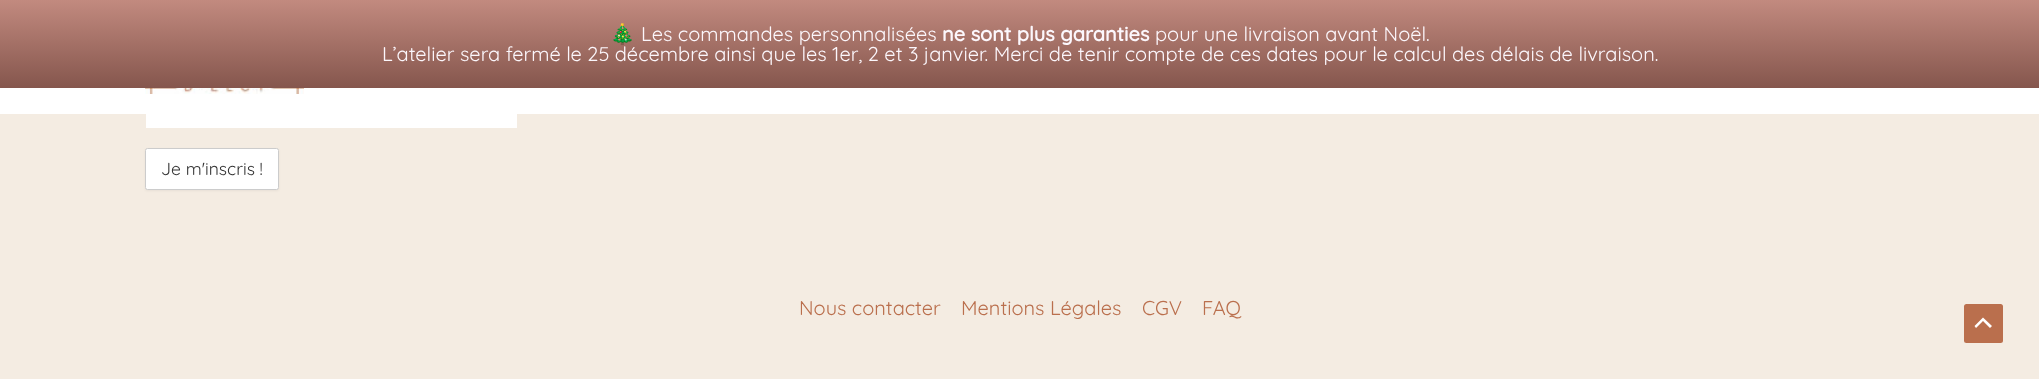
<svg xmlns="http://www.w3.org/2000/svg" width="2039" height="379">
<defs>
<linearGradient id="g1" gradientUnits="userSpaceOnUse" x1="1020" y1="0" x2="1020" y2="88"><stop offset="0" stop-color="#c28a7f"/><stop offset="1" stop-color="#85564d"/></linearGradient>
</defs>
<rect width="100%" height="100%" fill="#f4ece2"/>
<rect width="2039" height="88" fill="url(#g1)"/>
<text x="610" y="41" style="font-family:Noto Color Emoji;font-size:20px;fill:#fcf7fc">🎄</text>
<text x="641" y="41" style="font-family:Quicksand;font-size:20px;fill:#fcf7fc">Les commandes personnalisées</text>
<text x="942" y="41" style="font-family:Quicksand;font-size:20px;font-weight:bold;fill:#fcf7fc">ne sont plus garanties</text>
<text x="1155" y="41" style="font-family:Quicksand;font-size:20px;fill:#fcf7fc">pour une livraison avant Noël.</text>
<text x="382" y="61" style="font-family:Quicksand;font-size:20px;fill:#fcf7fc">L’atelier sera fermé le 25 décembre ainsi que les 1er, 2 et 3 janvier. Merci de tenir compte de ces dates pour le calcul des délais de livraison.</text>
<rect y="88" width="2039" height="26" fill="#fff"/>
<image x="145" y="88" width="159" height="6" href="media/1.png"/>
<rect x="146" y="114" width="371" height="14" fill="#fff"/>
<rect x="145" y="149" width="134" height="42" rx="2.5" fill="#0000000d" filter="blur(1px)"/>
<rect x="145.5" y="148.5" width="133" height="41" rx="2" fill="#fff" stroke="#ccc"/>
<text x="161" y="175" style="font-family:Quicksand;font-size:17.5px;fill:#333">Je m'inscris !</text>
<text x="799" y="315" style="font-family:Quicksand;font-size:20px;fill:#ba6f4d">Nous contacter</text>
<text x="961" y="315" style="font-family:Quicksand;font-size:20px;fill:#ba6f4d">Mentions Légales</text>
<text x="1142" y="315" style="font-family:Quicksand;font-size:20px;fill:#ba6f4d">CGV</text>
<text x="1202" y="315" style="font-family:Quicksand;font-size:20px;fill:#ba6f4d">FAQ</text>
<rect x="1964" y="304" width="39" height="39" rx="2.5" fill="#ba6f4d"/>
<path d="M1992 326l-9-8.5l-8.5 8.5l1.5 2l7-7l7 7z" fill="#fff"/>
</svg>
